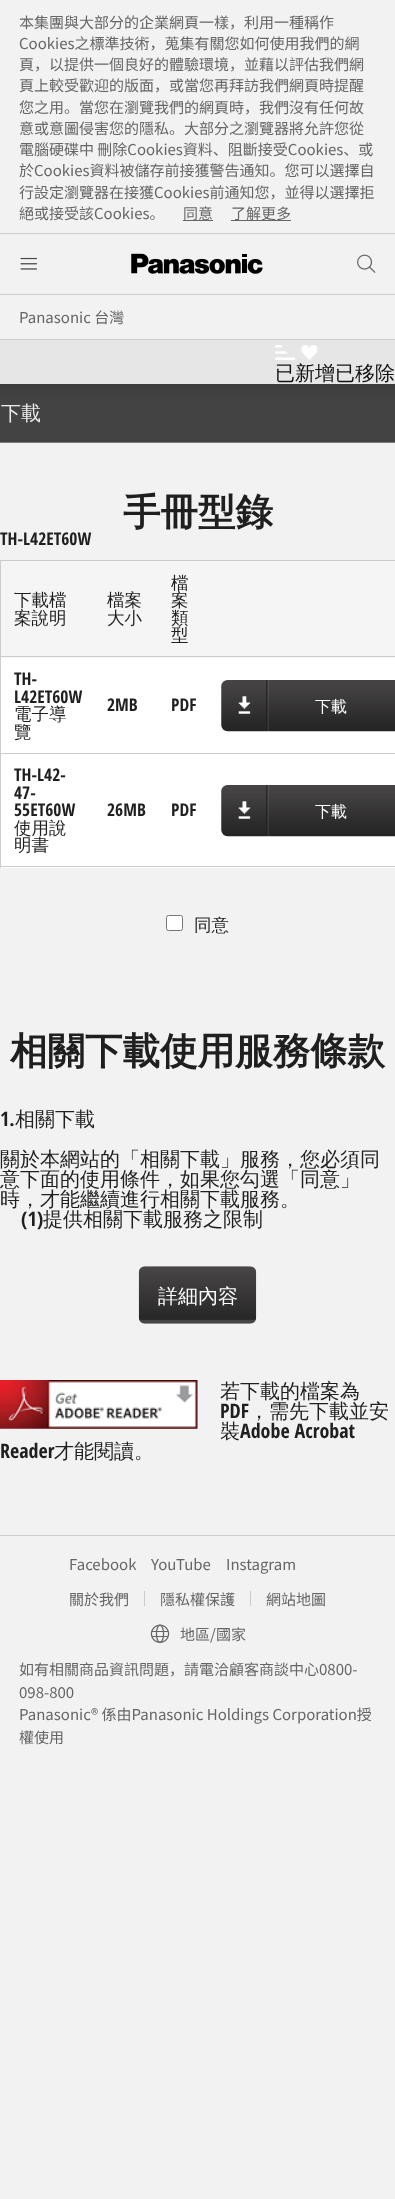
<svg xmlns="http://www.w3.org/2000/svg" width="395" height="2199">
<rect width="100%" height="100%" fill="#f2f2f2"/>
<rect y="233" width="395" height="1" fill="#ccc"/>
<text x="19" y="28" style="font-family:Noto Sans SC;font-size:15px;fill:#666">本集團與大部分的企業網頁一樣，利用一種稱作</text>
<text x="19" y="49" style="font-family:Noto Sans SC;font-size:15px;fill:#666">Cookies之標準技術，蒐集有關您如何使用我們的網</text>
<text x="19" y="70" style="font-family:Noto Sans SC;font-size:15px;fill:#666">頁，以提供一個良好的體驗環境，並藉以評估我們網</text>
<text x="19" y="91" style="font-family:Noto Sans SC;font-size:15px;fill:#666">頁上較受歡迎的版面，或當您再拜訪我們網頁時提醒</text>
<text x="19" y="113" style="font-family:Noto Sans SC;font-size:15px;fill:#666">您之用。當您在瀏覽我們的網頁時，我們沒有任何故</text>
<text x="19" y="134" style="font-family:Noto Sans SC;font-size:15px;fill:#666">意或意圖侵害您的隱私。大部分之瀏覽器將允許您從</text>
<text x="19" y="155" style="font-family:Noto Sans SC;font-size:15px;fill:#666">電腦硬碟中 刪除Cookies資料、阻斷接受Cookies、或</text>
<text x="19" y="176" style="font-family:Noto Sans SC;font-size:15px;fill:#666">於Cookies資料被儲存前接獲警告通知。您可以選擇自</text>
<text x="19" y="198" style="font-family:Noto Sans SC;font-size:15px;fill:#666">行設定瀏覽器在接獲Cookies前通知您，並得以選擇拒</text>
<text x="19" y="219" style="font-family:Noto Sans SC;font-size:15px;fill:#666">絕或接受該Cookies。</text>
<rect x="183" y="220" width="30" height="1" fill="#666"/>
<text x="183" y="219" style="font-family:Noto Sans SC;font-size:15px;fill:#666">同意</text>
<rect x="231" y="220" width="60" height="1" fill="#666"/>
<text x="231" y="219" style="font-family:Noto Sans SC;font-size:15px;fill:#666">了解更多</text>
<image x="20" y="257" width="17" height="13" href="media/1.png"/>
<image x="131" y="253" width="132" height="21" href="media/2.png"/>
<image x="357" y="254" width="19" height="19" href="media/3.png"/>
<rect y="294" width="395" height="1" fill="#ccc"/>
<text x="19" y="323" style="font-family:Noto Sans SC;font-size:15px;fill:#666">Panasonic 台灣</text>
<rect y="340" width="395" height="44" fill="#e6e6e6"/>
<rect y="339" width="395" height="1" fill="#ccc"/>
<image x="275" y="345" width="20" height="15" href="media/4.png"/>
<image x="301" y="345" width="17" height="15" href="media/5.png"/>
<text x="275" y="380" style="font-family:WenQuanYi Zen Hei;font-size:20px;font-weight:500;fill:#111">已新增已移除</text>
<image x="0" y="442" width="395" height="1" href="media/6.png"/>
<image x="0" y="384" width="395" height="59" href="media/7.png"/>
<text x="1" y="420" style="font-family:WenQuanYi Zen Hei;font-size:20px;font-weight:500;fill:#ececec">下載</text>
<text x="123" y="525" style="font-family:WenQuanYi Zen Hei;font-size:37.5px;font-weight:bold;fill:#1f1f1f">手冊型錄</text>
<text x="0" y="545" style="font-family:Open Sans Condensed;font-size:17.5px;font-weight:bold;fill:#1f1f1f">TH-L42ET60W</text>
<rect y="560" width="395" height="1" fill="#ccc"/>
<rect x="1" y="754" width="394" height="114" fill="#fff"/>
<rect y="866" width="395" height="1" fill="#ccc"/>
<rect y="560" width="1" height="308" fill="#ccc"/>
<rect x="1" y="561" width="394" height="97" fill="#f5f5f5"/>
<text x="14" y="606" style="font-family:WenQuanYi Zen Hei;font-size:17.5px;font-weight:500;fill:#1f1f1f">下載檔</text>
<text x="14" y="624" style="font-family:WenQuanYi Zen Hei;font-size:17.5px;font-weight:500;fill:#1f1f1f">案說明</text>
<text x="107" y="606" style="font-family:WenQuanYi Zen Hei;font-size:17.5px;font-weight:500;fill:#1f1f1f">檔案</text>
<text x="107" y="624" style="font-family:WenQuanYi Zen Hei;font-size:17.5px;font-weight:500;fill:#1f1f1f">大小</text>
<text x="171" y="589" style="font-family:WenQuanYi Zen Hei;font-size:17.5px;font-weight:500;fill:#1f1f1f">檔</text>
<text x="171" y="606" style="font-family:WenQuanYi Zen Hei;font-size:17.5px;font-weight:500;fill:#1f1f1f">案</text>
<text x="171" y="624" style="font-family:WenQuanYi Zen Hei;font-size:17.5px;font-weight:500;fill:#1f1f1f">類</text>
<text x="171" y="641" style="font-family:WenQuanYi Zen Hei;font-size:17.5px;font-weight:500;fill:#1f1f1f">型</text>
<rect x="1" y="658" width="394" height="95" fill="#fff"/>
<text x="14" y="685" style="font-family:Open Sans Condensed;font-size:17.5px;font-weight:bold;fill:#1f1f1f">TH-</text>
<text x="14" y="703" style="font-family:Open Sans Condensed;font-size:17.5px;font-weight:bold;fill:#1f1f1f">L42ET60W</text>
<text x="14" y="720" style="font-family:WenQuanYi Zen Hei;font-size:17.5px;font-weight:500;fill:#1f1f1f">電子導</text>
<text x="14" y="738" style="font-family:WenQuanYi Zen Hei;font-size:17.5px;font-weight:500;fill:#1f1f1f">覽</text>
<text x="107" y="711" style="font-family:Open Sans Condensed;font-size:17.5px;font-weight:bold;fill:#1f1f1f">2MB</text>
<text x="171" y="711" style="font-family:Open Sans Condensed;font-size:17.5px;font-weight:bold;fill:#1f1f1f">PDF</text>
<rect y="656" width="395" height="1" fill="#ccc"/>
<image x="221" y="680" width="174" height="52" href="media/8.png"/>
<text x="315" y="712" style="font-family:WenQuanYi Zen Hei;font-size:16px;font-weight:500;fill:#fff">下載</text>
<text x="14" y="781" style="font-family:Open Sans Condensed;font-size:17.5px;font-weight:bold;fill:#1f1f1f">TH-L42-</text>
<text x="14" y="799" style="font-family:Open Sans Condensed;font-size:17.5px;font-weight:bold;fill:#1f1f1f">47-</text>
<text x="14" y="816" style="font-family:Open Sans Condensed;font-size:17.5px;font-weight:bold;fill:#1f1f1f">55ET60W</text>
<text x="14" y="834" style="font-family:WenQuanYi Zen Hei;font-size:17.5px;font-weight:500;fill:#1f1f1f">使用說</text>
<text x="14" y="851" style="font-family:WenQuanYi Zen Hei;font-size:17.5px;font-weight:500;fill:#1f1f1f">明書</text>
<text x="107" y="816" style="font-family:Open Sans Condensed;font-size:17.5px;font-weight:bold;fill:#1f1f1f">26MB</text>
<text x="171" y="816" style="font-family:Open Sans Condensed;font-size:17.5px;font-weight:bold;fill:#1f1f1f">PDF</text>
<rect y="753" width="395" height="1" fill="#ccc"/>
<image x="221" y="785" width="174" height="52" href="media/8.png"/>
<text x="315" y="817" style="font-family:WenQuanYi Zen Hei;font-size:16px;font-weight:500;fill:#fff">下載</text>
<rect x="166.5" y="915.5" width="16" height="15" rx="2" fill="#fff" stroke="#767676"/>
<text x="194" y="931" style="font-family:WenQuanYi Zen Hei;font-size:17.5px;font-weight:500;fill:#1f1f1f">同意</text>
<text x="10" y="1064" style="font-family:WenQuanYi Zen Hei;font-size:37.5px;font-weight:bold;fill:#1f1f1f">相關下載使用服務條款</text>
<text x="0" y="1126" style="font-family:Open Sans Condensed;font-size:20px;font-weight:bold;fill:#1f1f1f">1.</text>
<text x="15" y="1126" style="font-family:WenQuanYi Zen Hei;font-size:20px;font-weight:500;fill:#1f1f1f">相關下載</text>
<text x="0" y="1166" style="font-family:WenQuanYi Zen Hei;font-size:20px;font-weight:500;fill:#1f1f1f">關於本網站的「相關下載」服務，您必須同</text>
<text x="0" y="1186" style="font-family:WenQuanYi Zen Hei;font-size:20px;font-weight:500;fill:#1f1f1f">意下面的使用條件，如果您勾選「同意」</text>
<text x="0" y="1206" style="font-family:WenQuanYi Zen Hei;font-size:20px;font-weight:500;fill:#1f1f1f">時，才能繼續進行相關下載服務。</text>
<text x="21" y="1226" style="font-family:Open Sans Condensed;font-size:20px;font-weight:bold;fill:#1f1f1f">(1)</text>
<text x="43" y="1226" style="font-family:WenQuanYi Zen Hei;font-size:20px;font-weight:500;fill:#1f1f1f">提供相關下載服務之限制</text>
<image x="138" y="1266" width="119" height="58" href="media/9.png"/>
<text x="158" y="1303" style="font-family:WenQuanYi Zen Hei;font-size:20px;font-weight:500;fill:#fff">詳細內容</text>
<image x="0" y="1380" width="198" height="49" href="media/10.png"/>
<text x="220" y="1398" style="font-family:WenQuanYi Zen Hei;font-size:20px;font-weight:500;fill:#1f1f1f">若下載的檔案為</text>
<text x="220" y="1418" style="font-family:Open Sans Condensed;font-size:20px;font-weight:bold;fill:#1f1f1f">PDF</text>
<text x="249" y="1418" style="font-family:WenQuanYi Zen Hei;font-size:20px;font-weight:500;fill:#1f1f1f">，需先下載並安</text>
<text x="220" y="1438" style="font-family:WenQuanYi Zen Hei;font-size:20px;font-weight:500;fill:#1f1f1f">裝</text>
<text x="240" y="1438" style="font-family:Open Sans Condensed;font-size:20px;font-weight:bold;fill:#1f1f1f">Adobe Acrobat</text>
<text x="0" y="1458" style="font-family:Open Sans Condensed;font-size:20px;font-weight:bold;fill:#1f1f1f">Reader</text>
<text x="54" y="1458" style="font-family:WenQuanYi Zen Hei;font-size:20px;font-weight:500;fill:#1f1f1f">才能閱讀。</text>
<rect y="1535" width="395" height="1" fill="#ccc"/>
<text x="69" y="1570" style="font-family:Noto Sans SC;font-size:15px;fill:#666">Facebook</text>
<text x="151" y="1570" style="font-family:Noto Sans SC;font-size:15px;fill:#666">YouTube</text>
<text x="226" y="1570" style="font-family:Noto Sans SC;font-size:15px;fill:#666">Instagram</text>
<text x="69" y="1605" style="font-family:Noto Sans SC;font-size:15px;fill:#666">關於我們</text>
<rect x="144" y="1591" width="1" height="15" fill="#ccc"/>
<text x="160" y="1605" style="font-family:Noto Sans SC;font-size:15px;fill:#666">隱私權保護</text>
<rect x="250" y="1591" width="1" height="15" fill="#ccc"/>
<text x="266" y="1605" style="font-family:Noto Sans SC;font-size:15px;fill:#666">網站地圖</text>
<image x="150" y="1624" width="20" height="19" href="media/11.png"/>
<text x="180" y="1640" style="font-family:Noto Sans SC;font-size:15px;fill:#666">地區/國家</text>
<text x="19" y="1675" style="font-family:Noto Sans SC;font-size:15px;fill:#666">如有相關商品資訊問題，請電洽顧客商談中心0800-</text>
<text x="19" y="1698" style="font-family:Noto Sans SC;font-size:15px;fill:#666">098-800</text>
<text x="19" y="1720" style="font-family:Noto Sans SC;font-size:15px;fill:#666">Panasonic® 係由Panasonic Holdings Corporation授</text>
<text x="19" y="1743" style="font-family:Noto Sans SC;font-size:15px;fill:#666">權使用</text>
</svg>
